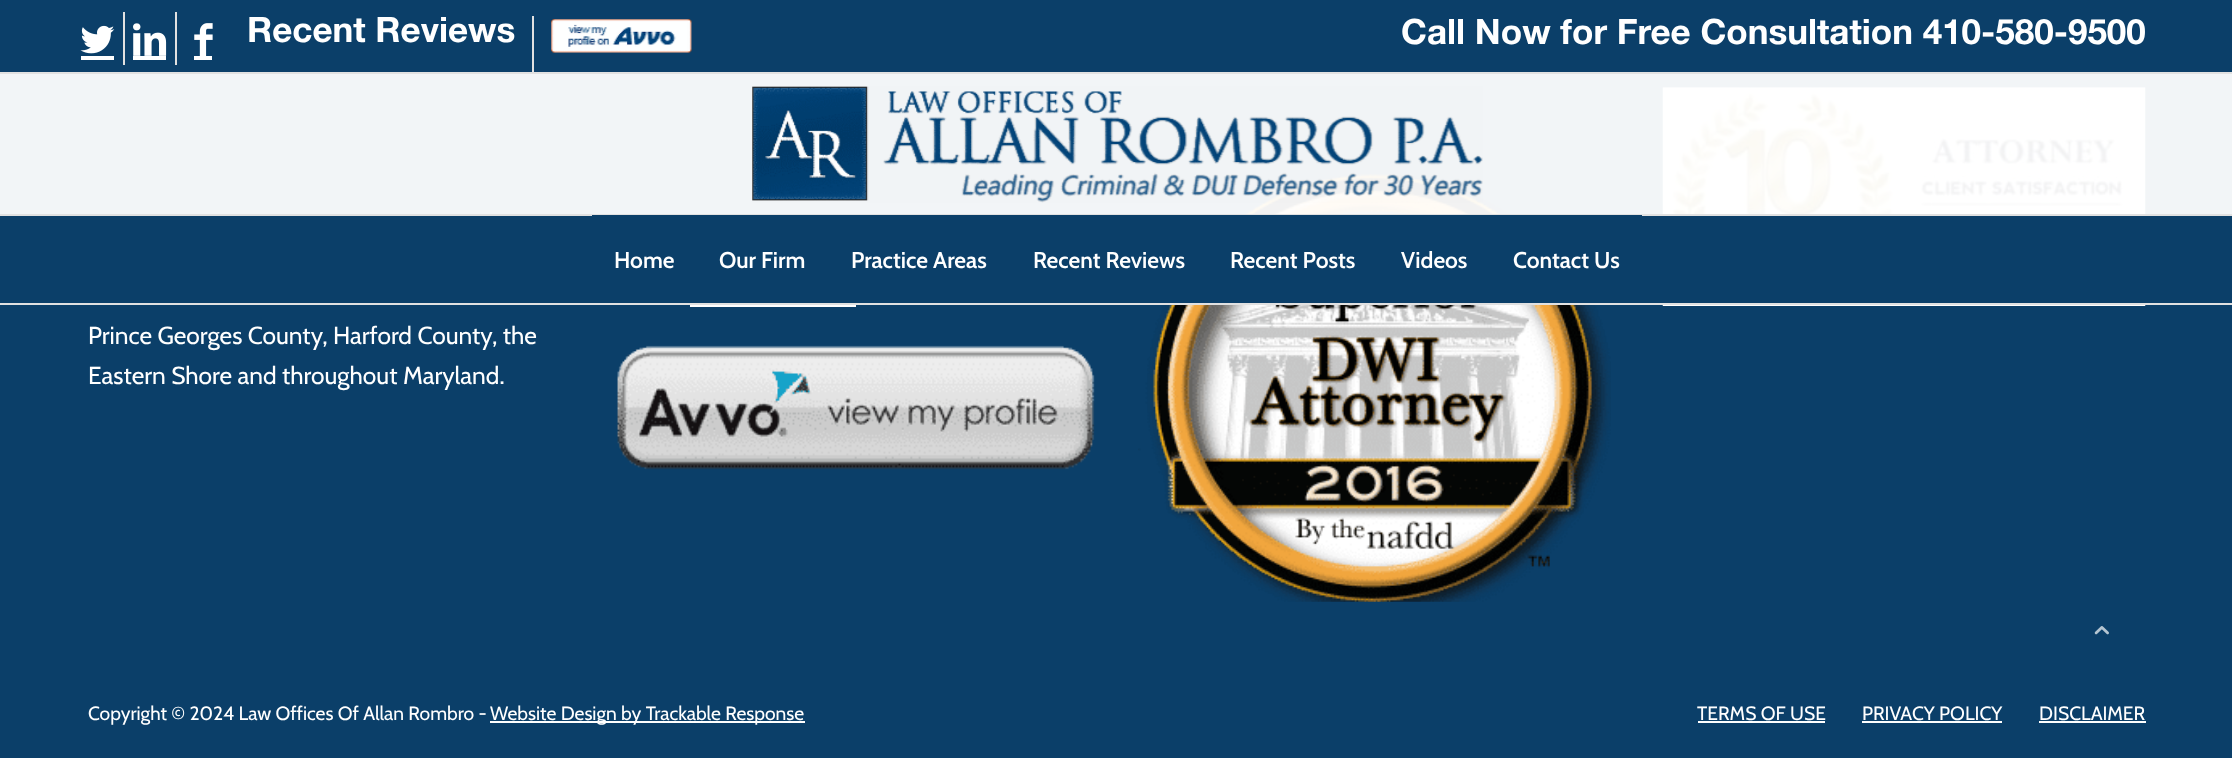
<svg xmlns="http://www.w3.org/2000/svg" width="2232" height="758">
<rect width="100%" height="100%" fill="#0b3f69"/>
<rect y="72" width="2232" height="2" fill="#e1e1e1"/>
<rect x="123" y="12" width="2" height="53" fill="#e1e1e1"/>
<image x="80" y="25" width="35" height="29" href="media/1.png"/>
<rect x="81" y="56" width="33" height="4" fill="#fff"/>
<rect x="175" y="12" width="2" height="53" fill="#e1e1e1"/>
<image x="133" y="23" width="34" height="33" href="media/2.png"/>
<rect x="133" y="56" width="33" height="4" fill="#fff"/>
<image x="194" y="23" width="19" height="33" href="media/3.png"/>
<rect x="194" y="56" width="18" height="4" fill="#fff"/>
<rect x="532" y="16" width="2" height="56" fill="#e1e1e1"/>
<text x="247" y="42" style="font-family:Helvetica Neue;font-size:35px;font-weight:bold;fill:#fff">Recent Reviews</text>
<image x="551" y="19" width="141" height="34" href="media/4.png"/>
<text x="1401" y="44" style="font-family:Helvetica Neue;font-size:35px;font-weight:bold;fill:#fff">Call Now for Free Consultation 410-580-9500</text>
<image x="1138" y="173" width="473" height="429" href="media/7.png"/>
<image x="1662" y="87" width="484" height="219" href="media/8.png"/>
<rect y="74" width="2232" height="140" fill="#fffffff2"/>
<rect y="303" width="2232" height="2" fill="#e1e1e1"/>
<image x="752" y="86" width="731" height="117" href="media/5.png"/>
<rect x="1165" y="216" width="981" height="87" fill="#0b3f69"/>
<rect y="214" width="2232" height="2" fill="#e1e1e1"/>
<rect x="592" y="215" width="1050" height="1" fill="#0b3f69"/>
<text x="614" y="268" style="font-family:Cabin;font-size:22.75px;font-weight:600;fill:#fff">Home</text>
<text x="719" y="268" style="font-family:Cabin;font-size:22.75px;font-weight:600;fill:#fff">Our Firm</text>
<text x="851" y="268" style="font-family:Cabin;font-size:22.75px;font-weight:600;fill:#fff">Practice Areas</text>
<text x="1033" y="268" style="font-family:Cabin;font-size:22.75px;font-weight:600;fill:#fff">Recent Reviews</text>
<text x="1230" y="268" style="font-family:Cabin;font-size:22.75px;font-weight:600;fill:#fff">Recent Posts</text>
<text x="1401" y="268" style="font-family:Cabin;font-size:22.75px;font-weight:600;fill:#fff">Videos</text>
<text x="1513" y="268" style="font-family:Cabin;font-size:22.75px;font-weight:600;fill:#fff">Contact Us</text>
<text x="88" y="344" style="font-family:Cabin;font-size:24.5px;fill:#fff">Prince Georges County, Harford County, the</text>
<text x="88" y="384" style="font-family:Cabin;font-size:24.5px;fill:#fff">Eastern Shore and throughout Maryland.</text>
<rect x="690" y="305" width="166" height="2" fill="#fff"/>
<image x="617" y="345" width="478" height="125" href="media/6.png"/>
<text x="88" y="720" style="font-family:Cabin;font-size:19.25px;fill:#fff">Copyright © 2024 Law Offices Of Allan Rombro -</text>
<rect x="490" y="721" width="315" height="2" fill="#fff"/>
<text x="490" y="720" style="font-family:Cabin;font-size:19.25px;fill:#fff">Website Design by Trackable Response</text>
<text x="1697" y="720" style="font-family:Cabin;font-size:19.25px;fill:#fff">TERMS OF USE</text>
<rect x="1698" y="721" width="127" height="2" fill="#fff"/>
<text x="1862" y="720" style="font-family:Cabin;font-size:19.25px;fill:#fff">PRIVACY POLICY</text>
<rect x="1862" y="721" width="140" height="2" fill="#fff"/>
<text x="2039" y="720" style="font-family:Cabin;font-size:19.25px;fill:#fff">DISCLAIMER</text>
<rect x="2039" y="721" width="107" height="2" fill="#fff"/>
<image x="2094" y="626" width="15" height="9" href="media/9.png"/>
</svg>
